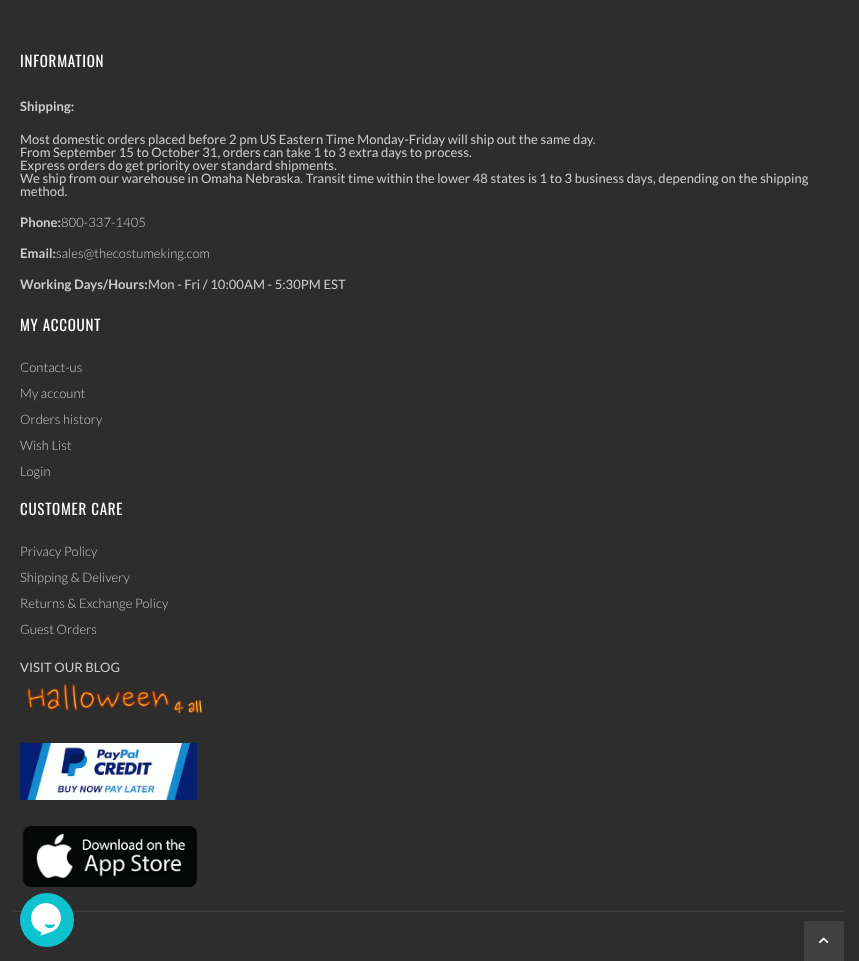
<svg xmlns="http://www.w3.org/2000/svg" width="859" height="961">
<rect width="100%" height="100%" fill="#2d2d2d"/>
<text x="20" y="67" style="font-family:Oswald;font-size:15px;letter-spacing:0.75px;fill:#fff">INFORMATION</text>
<text x="20" y="111" style="font-family:Lato;font-size:13px;font-weight:bold;letter-spacing:0.07px;fill:#cccbcb">Shipping:</text>
<text x="20" y="144" style="font-family:Lato;font-size:13px;letter-spacing:0.07px;fill:#cccbcb">Most domestic orders placed before 2 pm US Eastern Time Monday-Friday will ship out the same day.</text>
<text x="20" y="157" style="font-family:Lato;font-size:13px;letter-spacing:0.07px;fill:#cccbcb">From September 15 to October 31, orders can take 1 to 3 extra days to process.</text>
<text x="20" y="170" style="font-family:Lato;font-size:13px;letter-spacing:0.07px;fill:#cccbcb">Express orders do get priority over standard shipments.</text>
<text x="20" y="183" style="font-family:Lato;font-size:13px;letter-spacing:0.07px;fill:#cccbcb">We ship from our warehouse in Omaha Nebraska. Transit time within the lower 48 states is 1 to 3 business days, depending on the shipping</text>
<text x="20" y="196" style="font-family:Lato;font-size:13px;letter-spacing:0.07px;fill:#cccbcb">method.</text>
<text x="20" y="227" style="font-family:Lato;font-size:13px;font-weight:bold;letter-spacing:0.07px;fill:#cccbcb">Phone:</text>
<text x="61" y="227" style="font-family:Lato;font-size:13px;font-weight:300;letter-spacing:0.07px;fill:#cccbcb">800-337-1405</text>
<text x="20" y="258" style="font-family:Lato;font-size:13px;font-weight:bold;letter-spacing:0.07px;fill:#cccbcb">Email:</text>
<text x="56" y="258" style="font-family:Lato;font-size:13px;font-weight:300;letter-spacing:0.07px;fill:#cccbcb">sales@thecostumeking.com</text>
<text x="20" y="289" style="font-family:Lato;font-size:13px;font-weight:bold;letter-spacing:0.07px;fill:#cccbcb">Working Days/Hours:</text>
<text x="148" y="289" style="font-family:Lato;font-size:13px;letter-spacing:0.07px;fill:#cccbcb">Mon - Fri / 10:00AM - 5:30PM EST</text>
<text x="20" y="331" style="font-family:Oswald;font-size:15px;letter-spacing:0.75px;fill:#fff">MY ACCOUNT</text>
<text x="20" y="372" style="font-family:Lato;font-size:13px;font-weight:300;letter-spacing:0.07px;fill:#cccbcb">Contact-us</text>
<text x="20" y="398" style="font-family:Lato;font-size:13px;font-weight:300;letter-spacing:0.07px;fill:#cccbcb">My account</text>
<text x="20" y="424" style="font-family:Lato;font-size:13px;font-weight:300;letter-spacing:0.07px;fill:#cccbcb">Orders history</text>
<text x="20" y="450" style="font-family:Lato;font-size:13px;font-weight:300;letter-spacing:0.07px;fill:#cccbcb">Wish List</text>
<text x="20" y="476" style="font-family:Lato;font-size:13px;font-weight:300;letter-spacing:0.07px;fill:#cccbcb">Login</text>
<text x="20" y="515" style="font-family:Oswald;font-size:15px;letter-spacing:0.75px;fill:#fff">CUSTOMER CARE</text>
<text x="20" y="556" style="font-family:Lato;font-size:13px;font-weight:300;letter-spacing:0.07px;fill:#cccbcb">Privacy Policy</text>
<text x="20" y="582" style="font-family:Lato;font-size:13px;font-weight:300;letter-spacing:0.07px;fill:#cccbcb">Shipping &amp; Delivery</text>
<text x="20" y="608" style="font-family:Lato;font-size:13px;font-weight:300;letter-spacing:0.07px;fill:#cccbcb">Returns &amp; Exchange Policy</text>
<text x="20" y="634" style="font-family:Lato;font-size:13px;font-weight:300;letter-spacing:0.07px;fill:#cccbcb">Guest Orders</text>
<text x="20" y="672" style="font-family:Lato;font-size:13px;letter-spacing:0.07px;fill:#cccbcb">VISIT OUR BLOG</text>
<image x="26" y="683" width="177" height="31" href="media/1.png"/>
<image x="20" y="743" width="177" height="57" href="media/2.png"/>
<image x="22" y="826" width="175" height="61" href="media/3.png"/>
<rect x="10" y="910" width="839" height="1" fill="#313438"/>
<rect x="15" y="911" width="829" height="1" fill="#404040"/>
<rect x="804" y="921" width="40" height="40" fill="#404040"/>
<image x="819" y="937" width="10" height="7" href="media/4.png"/>
<circle cx="47" cy="920" r="27" fill="#0fc2cf"/>
<image x="31" y="903" width="30" height="33" href="media/5.png"/>
</svg>
